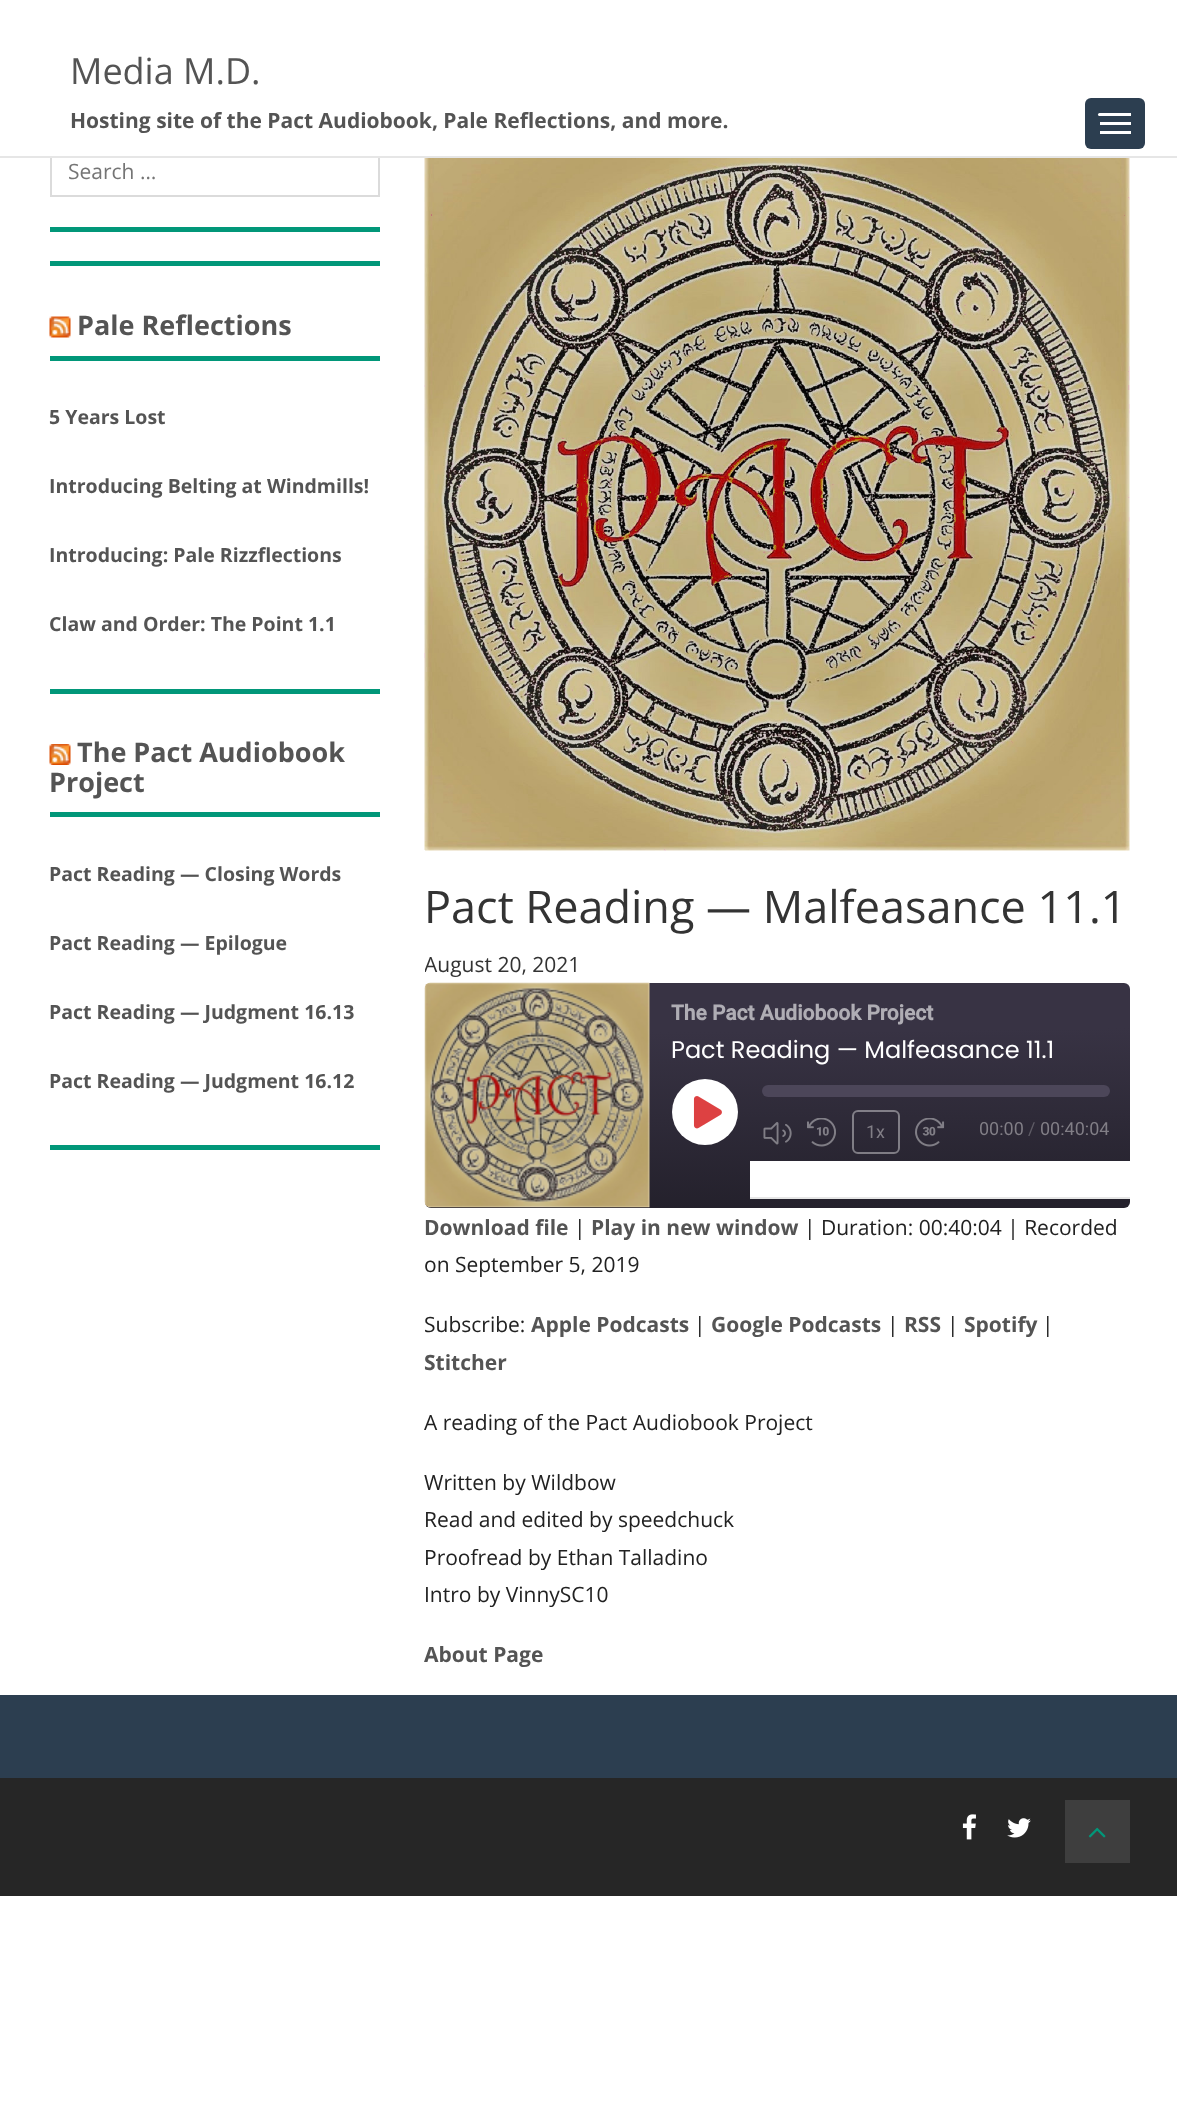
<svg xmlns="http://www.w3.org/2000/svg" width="1177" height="2122">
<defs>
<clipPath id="clip1"><rect x="425" y="945" width="705" height="38"/></clipPath>
<linearGradient id="g1" gradientUnits="userSpaceOnUse" x1="778" y1="1209" x2="776" y2="981"><stop offset="0.01" stop-color="#24212c"/><stop offset="0.78" stop-color="#383344"/></linearGradient>
</defs>
<rect width="100%" height="100%" fill="#fff"/>
<rect x="51" y="147" width="328" height="49" fill="none" stroke="#dbdbdb" stroke-width="2"/>
<rect x="50" y="146" width="330" height="10" fill="#fff"/>
<rect y="156" width="1177" height="2" fill="#e6e6e6"/>
<text x="70" y="84" style="font-family:Open Sans;font-size:36px;fill:#545454">Media M.D.</text>
<text x="70" y="128" style="font-family:Open Sans;font-size:21px;font-weight:bold;fill:#545454">Hosting site of the Pact Audiobook, Pale Reflections, and more.</text>
<rect x="1085" y="98" width="60" height="51" rx="6" fill="#2c3e50"/>
<rect x="1098" y="113" width="33" height="3" rx="1.5" fill="#fff"/>
<rect x="1129" y="113" width="2" height="3" fill="#fff"/>
<rect x="1100" y="122" width="31" height="3" fill="#fff"/>
<rect x="1100" y="131" width="31" height="3" fill="#fff"/>
<text x="68" y="179" style="font-family:Open Sans;font-size:21px;fill:#757575">Search …</text>
<rect x="50" y="227" width="330" height="5" fill="#019779"/>
<rect x="50" y="261" width="330" height="5" fill="#019779"/>
<rect x="50" y="356" width="330" height="5" fill="#019779"/>
<image x="49" y="316" width="22" height="22" href="media/1.png"/>
<text x="77" y="335" style="font-family:Open Sans;font-size:27px;font-weight:bold;fill:#545454">Pale Reflections</text>
<text x="49" y="424" style="font-family:Open Sans;font-size:19.5px;font-weight:bold;fill:#545454">5 Years Lost</text>
<text x="49" y="493" style="font-family:Open Sans;font-size:19.5px;font-weight:bold;fill:#545454">Introducing Belting at Windmills!</text>
<text x="49" y="562" style="font-family:Open Sans;font-size:19.5px;font-weight:bold;fill:#545454">Introducing: Pale Rizzflections</text>
<text x="49" y="631" style="font-family:Open Sans;font-size:19.5px;font-weight:bold;fill:#545454">Claw and Order: The Point 1.1</text>
<rect x="50" y="689" width="330" height="5" fill="#019779"/>
<rect x="50" y="812" width="330" height="5" fill="#019779"/>
<image x="49" y="744" width="22" height="21" href="media/2.png"/>
<text x="77" y="762" style="font-family:Open Sans;font-size:27px;font-weight:bold;fill:#545454">The Pact Audiobook</text>
<text x="49" y="792" style="font-family:Open Sans;font-size:27px;font-weight:bold;fill:#545454">Project</text>
<text x="49" y="881" style="font-family:Open Sans;font-size:19.5px;font-weight:bold;fill:#545454">Pact Reading — Closing Words</text>
<text x="49" y="950" style="font-family:Open Sans;font-size:19.5px;font-weight:bold;fill:#545454">Pact Reading — Epilogue</text>
<text x="49" y="1019" style="font-family:Open Sans;font-size:19.5px;font-weight:bold;fill:#545454">Pact Reading — Judgment 16.13</text>
<text x="49" y="1088" style="font-family:Open Sans;font-size:19.5px;font-weight:bold;fill:#545454">Pact Reading — Judgment 16.12</text>
<rect x="50" y="1145" width="330" height="5" fill="#019779"/>
<image x="424" y="158" width="706" height="693" href="media/3.png"/>
<text x="424" y="923" style="font-family:Open Sans;font-size:45px;fill:#333">Pact Reading — Malfeasance 11.1</text>
<g clip-path="url(#clip1)">
<text x="424" y="972" style="font-family:Open Sans;font-size:21px;fill:#333">August 20, 2021</text>
</g>
<rect x="425" y="983" width="705" height="225" rx="6" fill="url(#g1)"/>
<image x="424" y="982" width="226" height="226" href="media/4.png"/>
<text x="671" y="1020" style="font-family:Roboto;font-size:21px;font-weight:bold;fill:#afadb4">The Pact Audiobook Project</text>
<text x="671" y="1058" style="font-family:Poppins;font-size:24px;fill:#fff">Pact Reading — Malfeasance 11.1</text>
<circle cx="705" cy="1112" r="33" fill="#fff"/>
<image x="693" y="1096" width="29" height="33" href="media/5.png"/>
<rect x="762" y="1085" width="348" height="12" rx="6" fill="#4c4659"/>
<image x="763" y="1122" width="29" height="23" href="media/6.png"/>
<image x="807" y="1118" width="29" height="29" href="media/7.png"/>
<rect x="853" y="1111" width="46" height="42" rx="5" fill="none" stroke="#ffffff66" stroke-width="2"/>
<text x="866" y="1138" style="font-family:Roboto;font-size:18px;fill:#817e86">1x</text>
<image x="915" y="1118" width="30" height="29" href="media/8.png"/>
<text x="979" y="1135" style="font-family:Roboto;font-size:18px;fill:#817e86">00:00</text>
<text x="1028" y="1135" style="font-family:Roboto;font-size:18px;fill:#5f5c66">/</text>
<text x="1040" y="1135" style="font-family:Roboto;font-size:18px;fill:#817e86">00:40:04</text>
<rect x="750" y="1161" width="380" height="36" fill="#fff"/>
<rect x="750" y="1197" width="380" height="2" fill="#e6e6e6"/>
<text x="424" y="1235" style="font-family:Open Sans;font-size:21px;font-weight:bold;fill:#545454">Download file</text>
<text x="574" y="1235" style="font-family:Open Sans;font-size:21px;fill:#212121">|</text>
<text x="591" y="1235" style="font-family:Open Sans;font-size:21px;font-weight:bold;fill:#545454">Play in new window</text>
<text x="804" y="1235" style="font-family:Open Sans;font-size:21px;fill:#212121">| Duration: 00:40:04 | Recorded</text>
<text x="424" y="1272" style="font-family:Open Sans;font-size:21px;fill:#212121">on September 5, 2019</text>
<text x="424" y="1332" style="font-family:Open Sans;font-size:21px;fill:#212121">Subscribe:</text>
<text x="531" y="1332" style="font-family:Open Sans;font-size:21px;font-weight:bold;fill:#545454">Apple Podcasts</text>
<text x="694" y="1332" style="font-family:Open Sans;font-size:21px;fill:#212121">|</text>
<text x="711" y="1332" style="font-family:Open Sans;font-size:21px;font-weight:bold;fill:#545454">Google Podcasts</text>
<text x="887" y="1332" style="font-family:Open Sans;font-size:21px;fill:#212121">|</text>
<text x="904" y="1332" style="font-family:Open Sans;font-size:21px;font-weight:bold;fill:#545454">RSS</text>
<text x="947" y="1332" style="font-family:Open Sans;font-size:21px;fill:#212121">|</text>
<text x="964" y="1332" style="font-family:Open Sans;font-size:21px;font-weight:bold;fill:#545454">Spotify</text>
<text x="1042" y="1332" style="font-family:Open Sans;font-size:21px;fill:#212121">|</text>
<text x="424" y="1370" style="font-family:Open Sans;font-size:21px;font-weight:bold;fill:#545454">Stitcher</text>
<text x="424" y="1430" style="font-family:Open Sans;font-size:21px;fill:#212121">A reading of the Pact Audiobook Project</text>
<text x="424" y="1490" style="font-family:Open Sans;font-size:21px;fill:#212121">Written by Wildbow</text>
<text x="424" y="1527" style="font-family:Open Sans;font-size:21px;fill:#212121">Read and edited by speedchuck</text>
<text x="424" y="1565" style="font-family:Open Sans;font-size:21px;fill:#212121">Proofread by Ethan Talladino</text>
<text x="424" y="1602" style="font-family:Open Sans;font-size:21px;fill:#212121">Intro by VinnySC10</text>
<text x="424" y="1662" style="font-family:Open Sans;font-size:21px;font-weight:bold;fill:#545454">About Page</text>
<rect y="1695" width="1177" height="83" fill="#2c3e50"/>
<rect y="1778" width="1177" height="118" fill="#262626"/>
<image x="962" y="1814" width="14" height="26" href="media/9.png"/>
<image x="1007" y="1818" width="24" height="20" href="media/10.png"/>
<rect x="1065" y="1800" width="65" height="63" fill="#3e3e3e"/>
<image x="1088" y="1827" width="18" height="11" href="media/11.png"/>
</svg>
